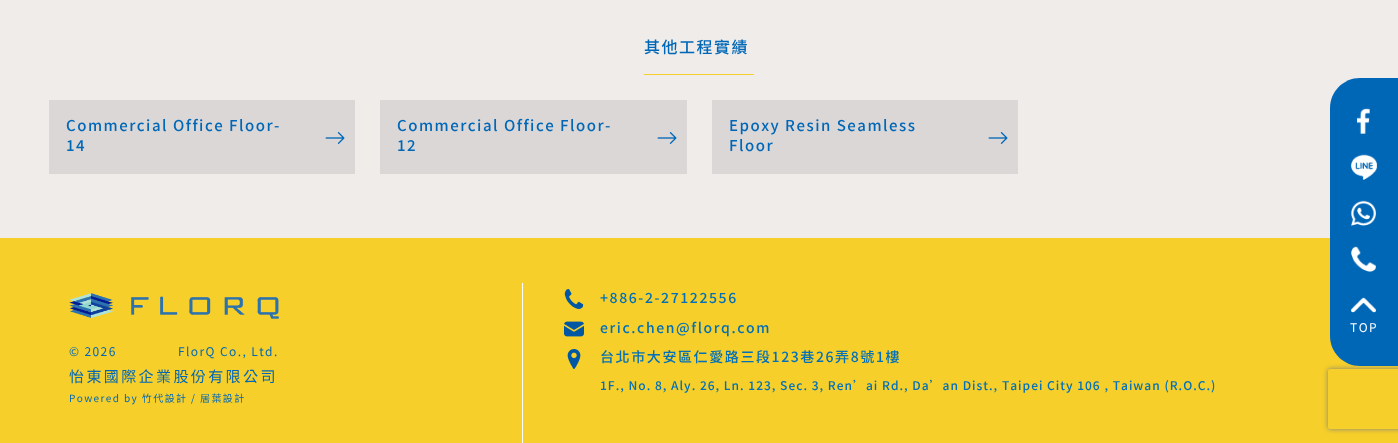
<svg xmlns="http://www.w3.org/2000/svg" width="1398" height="443">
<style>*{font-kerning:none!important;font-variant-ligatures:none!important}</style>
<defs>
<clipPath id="clip1"><path d="M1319 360h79v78h-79zm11 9h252c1 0 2 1 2 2v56c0 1-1 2-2 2h-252c-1 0-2-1-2-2v-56c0-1 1-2 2-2z" clip-rule="evenodd"/></clipPath>
</defs>
<rect width="100%" height="100%" fill="#efecea"/>
<text x="644" y="53" style="font-family:Noto Sans TC;font-size:16px;font-weight:500;letter-spacing:1.5px;fill:#0067b7">其他工程實績</text>
<rect x="644" y="74" width="110" height="1" fill="#f6cf2a"/>
<rect x="49" y="100" width="306" height="74" fill="#dbd7d7"/>
<text x="66" y="131" style="font-family:Noto Sans TC;font-size:15px;font-weight:500;letter-spacing:1.5px;fill:#0067b7">Commercial Office Floor-</text>
<text x="66" y="151" style="font-family:Noto Sans TC;font-size:15px;font-weight:500;letter-spacing:1.5px;fill:#0067b7">14</text>
<image x="325" y="132" width="20" height="12" href="media/1.png"/>
<rect x="380" y="100" width="307" height="74" fill="#dbd7d7"/>
<text x="397" y="131" style="font-family:Noto Sans TC;font-size:15px;font-weight:500;letter-spacing:1.5px;fill:#0067b7">Commercial Office Floor-</text>
<text x="397" y="151" style="font-family:Noto Sans TC;font-size:15px;font-weight:500;letter-spacing:1.5px;fill:#0067b7">12</text>
<image x="657" y="132" width="20" height="12" href="media/1.png"/>
<rect x="712" y="100" width="306" height="74" fill="#dbd7d7"/>
<text x="729" y="131" style="font-family:Noto Sans TC;font-size:15px;font-weight:500;letter-spacing:1.5px;fill:#0067b7">Epoxy Resin Seamless</text>
<text x="729" y="151" style="font-family:Noto Sans TC;font-size:15px;font-weight:500;letter-spacing:1.5px;fill:#0067b7">Floor</text>
<image x="988" y="132" width="20" height="12" href="media/1.png"/>
<rect y="238" width="1398" height="205" fill="#f6cf2a"/>
<image x="69" y="293" width="210" height="26" href="media/2.png"/>
<text x="69" y="356" style="font-family:Noto Sans TC;font-size:12px;letter-spacing:1.4px;fill:#0067b7">© 2026</text>
<text x="178" y="356" style="font-family:Noto Sans TC;font-size:12px;letter-spacing:1.4px;fill:#0067b7">FlorQ Co., Ltd.</text>
<text x="69" y="382" style="font-family:Noto Sans TC;font-size:15px;letter-spacing:2.4px;fill:#0067b7">怡東國際企業股份有限公司</text>
<text x="69" y="402" style="font-family:Noto Sans TC;font-size:10px;letter-spacing:1.4px;fill:#0067b7">Powered by 竹代設計 / 居葉設計</text>
<rect x="522" y="283" width="1" height="160" fill="#fff"/>
<image x="564" y="289" width="20" height="20" href="media/3.png"/>
<text x="600" y="303" style="font-family:Noto Sans TC;font-size:14px;font-weight:500;letter-spacing:1.6px;fill:#0170b9">+886-2-27122556</text>
<image x="564" y="321" width="20" height="16" href="media/4.png"/>
<text x="600" y="333" style="font-family:Noto Sans TC;font-size:14px;font-weight:500;letter-spacing:1.6px;fill:#0170b9">eric.chen@florq.com</text>
<image x="567" y="349" width="14" height="20" href="media/5.png"/>
<text x="600" y="362" style="font-family:Noto Sans TC;font-size:14px;font-weight:500;letter-spacing:1.6px;fill:#0170b9">台北市大安區仁愛路三段123巷26弄8號1樓</text>
<text x="600" y="390" style="font-family:Noto Sans TC;font-size:12px;font-weight:500;letter-spacing:1px;fill:#0170b9">1F., No. 8, Aly. 26, Ln. 123, Sec. 3, Ren’ai Rd., Da’an Dist., Taipei</text>
<text x="1047" y="390" style="font-family:Noto Sans TC;font-size:12px;font-weight:500;letter-spacing:1px;fill:#0170b9">City 106 , Taiwan (R.O.C.)</text>
<g clip-path="url(#clip1)">
<rect x="1328" y="369" width="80" height="60" rx="2" fill="#808080" filter="blur(2.5px)"/>
</g>
<path d="M1360 78h38v288h-38c-16.5 0-30-13.5-30-30v-228c0-16.5 13.5-30 30-30z" fill="#0067b7"/>
<image x="1357" y="108" width="13" height="26" href="media/6.png"/>
<image x="1351" y="154" width="26" height="26" href="media/7.png"/>
<image x="1351" y="200" width="25" height="26" href="media/8.png"/>
<image x="1351" y="246" width="25" height="26" href="media/9.png"/>
<image x="1351" y="297" width="25" height="16" href="media/10.png"/>
<text x="1350" y="332" style="font-family:Noto Sans TC;font-size:12px;letter-spacing:1.5px;fill:#fff">TOP</text>
</svg>
